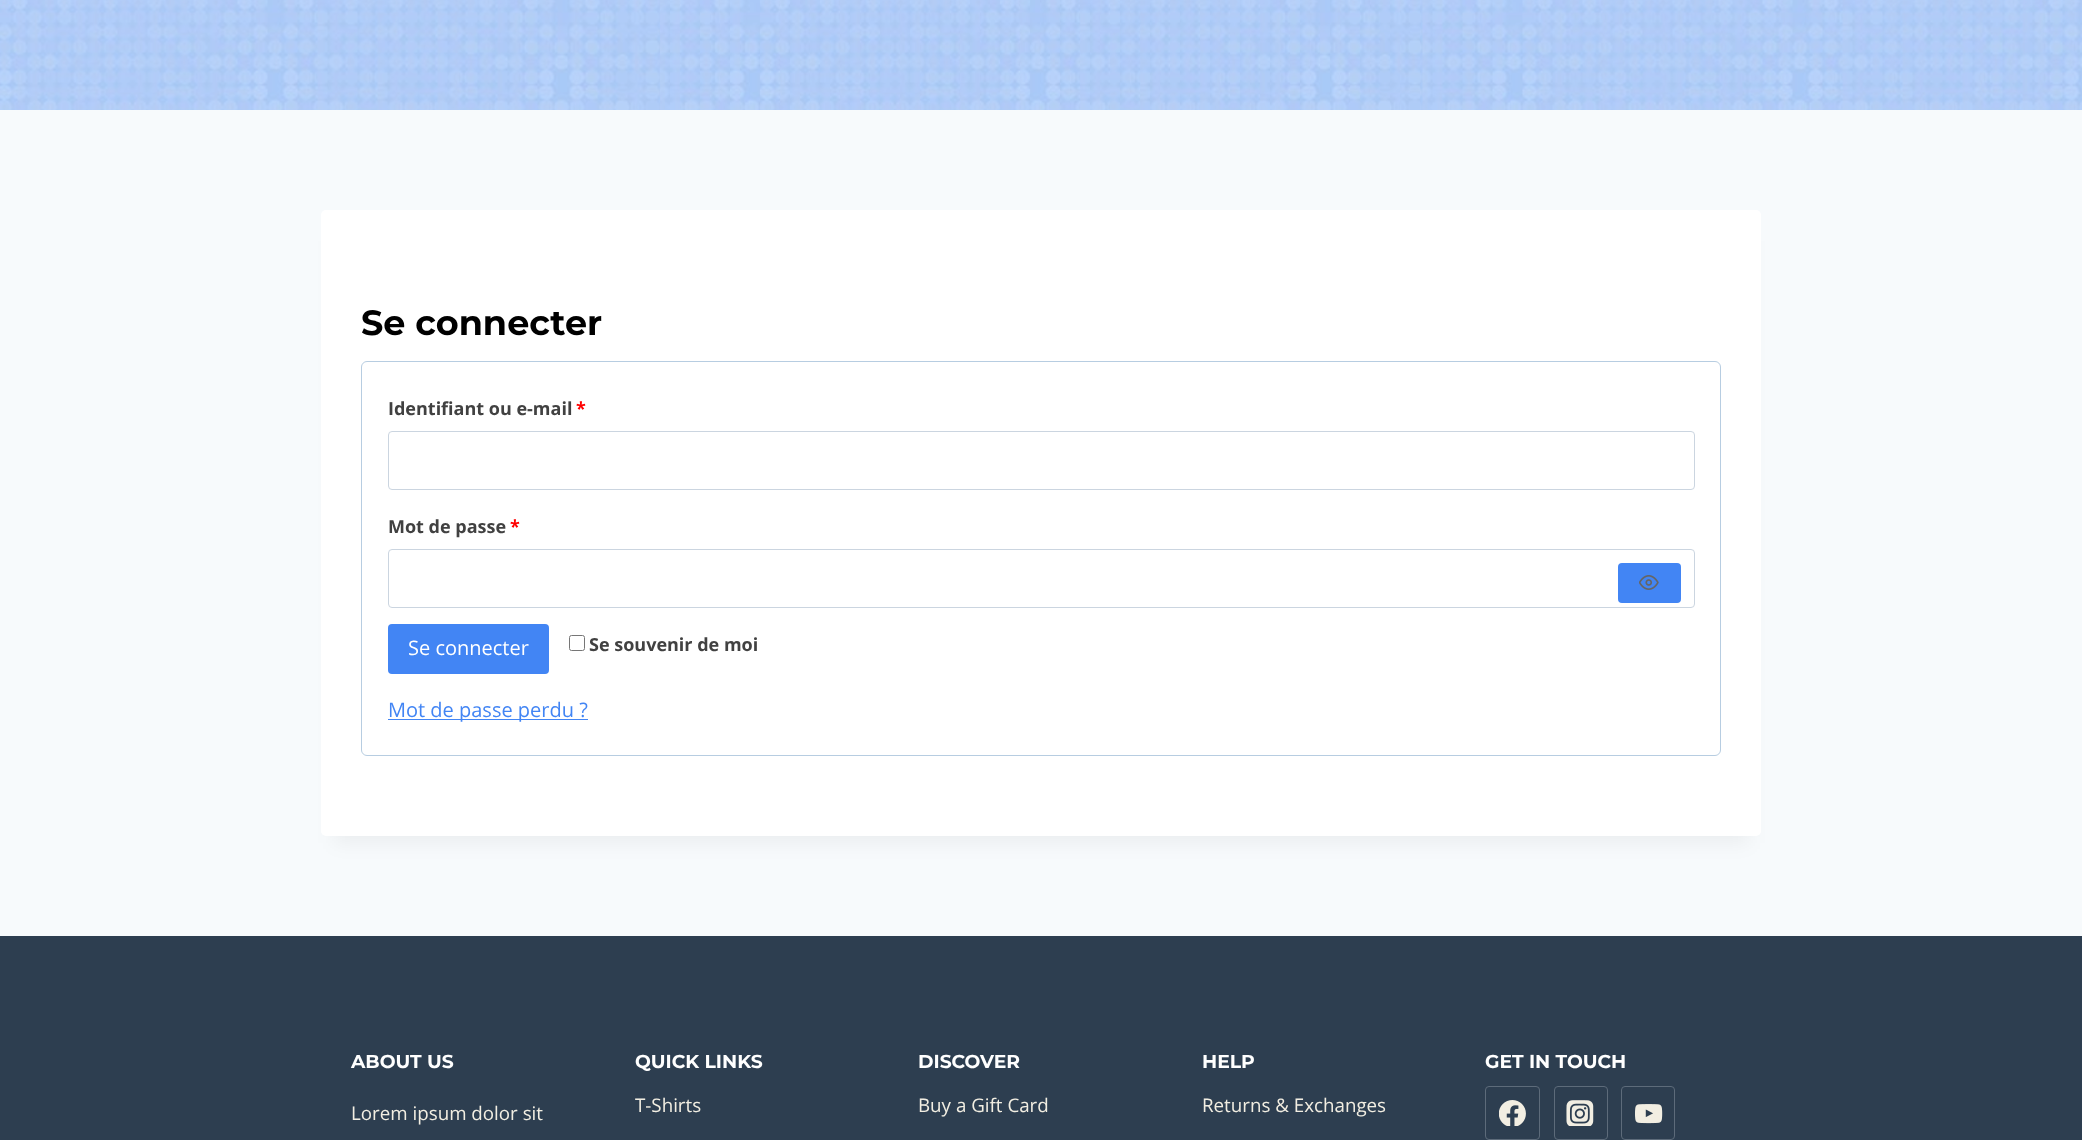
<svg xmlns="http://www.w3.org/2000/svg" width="2082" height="1140">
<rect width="100%" height="100%" fill="#f7fafc"/>
<image x="0" y="0" width="2082" height="110" href="media/1.png"/>
<rect x="334" y="241" width="1415" height="602" fill="#0000000d" filter="blur(9.5px)"/>
<rect x="321" y="210" width="1440" height="626" rx="5" fill="#fff"/>
<text x="361" y="335" style="font-family:Montserrat;font-size:35px;font-weight:bold;fill:#000">Se connecter</text>
<rect x="361.5" y="361.5" width="1359" height="394" rx="5.5" fill="none" stroke="#b7cde1"/>
<text x="388" y="415" style="font-family:Open Sans;font-size:18px;font-weight:bold;fill:#414141">Identifiant ou e-mail</text>
<text x="576" y="415" style="font-family:Open Sans;font-size:18px;font-weight:bold;fill:#f00">*</text>
<rect x="388.5" y="431.5" width="1306" height="58" rx="3.5" fill="none" stroke="#cbd5e0"/>
<text x="388" y="533" style="font-family:Open Sans;font-size:18px;font-weight:bold;fill:#414141">Mot de passe</text>
<text x="510" y="533" style="font-family:Open Sans;font-size:18px;font-weight:bold;fill:#f00">*</text>
<rect x="388.5" y="549.5" width="1306" height="58" rx="3.5" fill="none" stroke="#cbd5e0"/>
<rect x="1618" y="563" width="63" height="40" rx="4" fill="#4285f4"/>
<image x="1639" y="575" width="20" height="15" href="media/2.png"/>
<rect x="388" y="624" width="161" height="50" rx="4" fill="#4285f4"/>
<text x="408" y="655" style="font-family:Open Sans;font-size:20px;fill:#fff">Se connecter</text>
<rect x="569.5" y="635.5" width="15" height="15" rx="2" fill="none" stroke="#767676"/>
<text x="589" y="651" style="font-family:Open Sans;font-size:18px;font-weight:bold;fill:#414141">Se souvenir de moi</text>
<rect x="388" y="719" width="200" height="1" fill="#4285f4"/>
<text x="388" y="717" style="font-family:Open Sans;font-size:20px;fill:#4285f4">Mot de passe perdu ?</text>
<rect y="936" width="2082" height="204" fill="#2d3e50"/>
<text x="351" y="1068" style="font-family:Montserrat;font-size:18.75px;font-weight:bold;fill:#fff">ABOUT US</text>
<text x="351" y="1120" style="font-family:Open Sans;font-size:18.75px;fill:#f2eee2">Lorem ipsum dolor sit</text>
<text x="635" y="1068" style="font-family:Montserrat;font-size:18.75px;font-weight:bold;fill:#fff">QUICK LINKS</text>
<text x="635" y="1112" style="font-family:Open Sans;font-size:18.75px;fill:#f2eee2">T-Shirts</text>
<text x="918" y="1068" style="font-family:Montserrat;font-size:18.75px;font-weight:bold;fill:#fff">DISCOVER</text>
<text x="918" y="1112" style="font-family:Open Sans;font-size:18.75px;fill:#f2eee2">Buy a Gift Card</text>
<text x="1202" y="1068" style="font-family:Montserrat;font-size:18.75px;font-weight:bold;fill:#fff">HELP</text>
<text x="1202" y="1112" style="font-family:Open Sans;font-size:18.75px;fill:#f2eee2">Returns &amp; Exchanges</text>
<text x="1485" y="1068" style="font-family:Montserrat;font-size:18.75px;font-weight:bold;fill:#fff">GET IN TOUCH</text>
<rect x="1485.5" y="1086.5" width="54" height="53" rx="3.5" fill="none" stroke="#5d6b7a"/>
<image x="1499" y="1100" width="27" height="26" href="media/3.png"/>
<rect x="1554.5" y="1086.5" width="53" height="53" rx="3.5" fill="none" stroke="#5d6b7a"/>
<image x="1566" y="1100" width="28" height="26" href="media/4.png"/>
<rect x="1621.5" y="1086.5" width="53" height="53" rx="3.5" fill="none" stroke="#5d6b7a"/>
<image x="1635" y="1104" width="28" height="20" href="media/5.png"/>
</svg>
